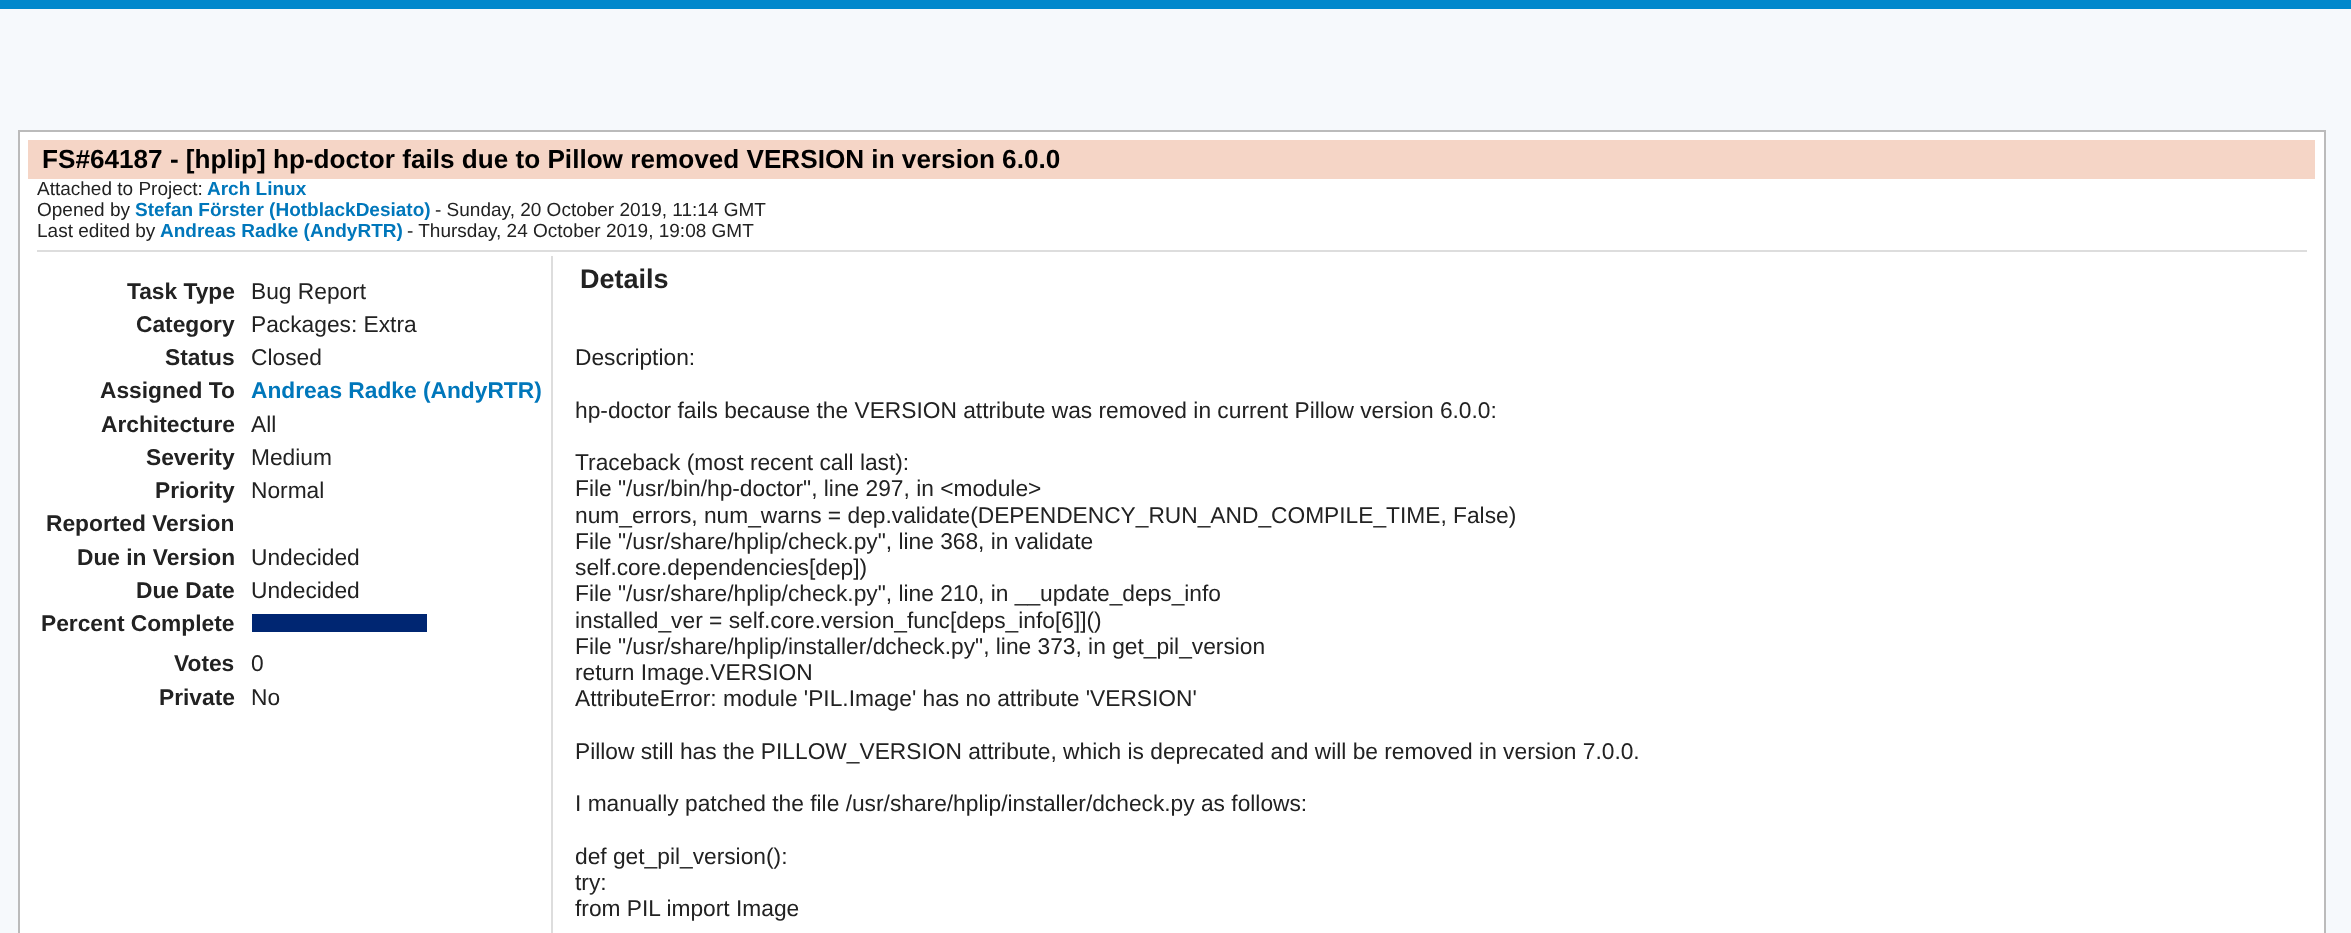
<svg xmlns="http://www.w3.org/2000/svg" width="2351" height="933">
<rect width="100%" height="100%" fill="#f6f9fc"/>
<rect width="2351" height="9" fill="#08c"/>
<rect x="19" y="131" width="2306" height="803" fill="#fff" stroke="#bbb" stroke-width="2"/>
<rect x="28" y="140" width="2287" height="39" fill="#f5d5c6"/>
<text x="42" y="168" style="font-family:Liberation Sans;font-size:26.15px;font-weight:bold;fill:#000">FS#64187 - [hplip] hp-doctor fails due to Pillow removed VERSION in version 6.0.0</text>
<rect x="37" y="250" width="2270" height="2" fill="#ddd"/>
<text x="37" y="195" style="font-family:Liberation Sans;font-size:19px;fill:#222">Attached to Project:</text>
<text x="207" y="195" style="font-family:Liberation Sans;font-size:19px;font-weight:bold;fill:#07b">Arch Linux</text>
<text x="37" y="216" style="font-family:Liberation Sans;font-size:19px;fill:#222">Opened by</text>
<text x="135" y="216" style="font-family:Liberation Sans;font-size:19px;font-weight:bold;fill:#07b">Stefan Förster (HotblackDesiato)</text>
<text x="435" y="216" style="font-family:Liberation Sans;font-size:19px;fill:#222">- Sunday, 20 October 2019, 11:14 GMT</text>
<text x="37" y="237" style="font-family:Liberation Sans;font-size:19px;fill:#222">Last edited by</text>
<text x="160" y="237" style="font-family:Liberation Sans;font-size:19px;font-weight:bold;fill:#07b">Andreas Radke (AndyRTR)</text>
<text x="407" y="237" style="font-family:Liberation Sans;font-size:19px;fill:#222">- Thursday, 24 October 2019, 19:08 GMT</text>
<rect x="551" y="256" width="2" height="677" fill="#ddd"/>
<text x="127" y="299" style="font-family:Liberation Sans;font-size:22.75px;font-weight:bold;fill:#222">Task Type</text>
<text x="251" y="299" style="font-family:Liberation Sans;font-size:22.75px;fill:#222">Bug Report</text>
<text x="136" y="332" style="font-family:Liberation Sans;font-size:22.75px;font-weight:bold;fill:#222">Category</text>
<text x="251" y="332" style="font-family:Liberation Sans;font-size:22.75px;fill:#222">Packages: Extra</text>
<text x="165" y="365" style="font-family:Liberation Sans;font-size:22.75px;font-weight:bold;fill:#222">Status</text>
<text x="251" y="365" style="font-family:Liberation Sans;font-size:22.75px;fill:#222">Closed</text>
<text x="100" y="398" style="font-family:Liberation Sans;font-size:22.75px;font-weight:bold;fill:#222">Assigned To</text>
<text x="251" y="398" style="font-family:Liberation Sans;font-size:22.75px;font-weight:bold;fill:#07b">Andreas Radke (AndyRTR)</text>
<text x="101" y="432" style="font-family:Liberation Sans;font-size:22.75px;font-weight:bold;fill:#222">Architecture</text>
<text x="251" y="432" style="font-family:Liberation Sans;font-size:22.75px;fill:#222">All</text>
<text x="146" y="465" style="font-family:Liberation Sans;font-size:22.75px;font-weight:bold;fill:#222">Severity</text>
<text x="251" y="465" style="font-family:Liberation Sans;font-size:22.75px;fill:#222">Medium</text>
<text x="155" y="498" style="font-family:Liberation Sans;font-size:22.75px;font-weight:bold;fill:#222">Priority</text>
<text x="251" y="498" style="font-family:Liberation Sans;font-size:22.75px;fill:#222">Normal</text>
<text x="46" y="531" style="font-family:Liberation Sans;font-size:22.75px;font-weight:bold;fill:#222">Reported Version</text>
<text x="77" y="565" style="font-family:Liberation Sans;font-size:22.75px;font-weight:bold;fill:#222">Due in Version</text>
<text x="251" y="565" style="font-family:Liberation Sans;font-size:22.75px;fill:#222">Undecided</text>
<text x="136" y="598" style="font-family:Liberation Sans;font-size:22.75px;font-weight:bold;fill:#222">Due Date</text>
<text x="251" y="598" style="font-family:Liberation Sans;font-size:22.75px;fill:#222">Undecided</text>
<text x="41" y="631" style="font-family:Liberation Sans;font-size:22.75px;font-weight:bold;fill:#222">Percent Complete</text>
<rect x="252" y="614" width="175" height="18" fill="#002672"/>
<text x="174" y="671" style="font-family:Liberation Sans;font-size:22.75px;font-weight:bold;fill:#222">Votes</text>
<text x="251" y="671" style="font-family:Liberation Sans;font-size:22.75px;fill:#222">0</text>
<text x="159" y="705" style="font-family:Liberation Sans;font-size:22.75px;font-weight:bold;fill:#222">Private</text>
<text x="251" y="705" style="font-family:Liberation Sans;font-size:22.75px;fill:#222">No</text>
<text x="580" y="288" style="font-family:Liberation Sans;font-size:27px;font-weight:bold;fill:#222">Details</text>
<text x="575" y="365" style="font-family:Liberation Sans;font-size:22.75px;fill:#222">Description:</text>
<text x="575" y="418" style="font-family:Liberation Sans;font-size:22.75px;fill:#222">hp-doctor fails because the VERSION attribute was removed in current Pillow version 6.0.0:</text>
<text x="575" y="470" style="font-family:Liberation Sans;font-size:22.75px;fill:#222">Traceback (most recent call last):</text>
<text x="575" y="496" style="font-family:Liberation Sans;font-size:22.75px;fill:#222">File "/usr/bin/hp-doctor", line 297, in &lt;module&gt;</text>
<text x="575" y="523" style="font-family:Liberation Sans;font-size:22.75px;fill:#222">num_errors, num_warns = dep.validate(DEPENDENCY_RUN_AND_COMPILE_TIME, False)</text>
<text x="575" y="549" style="font-family:Liberation Sans;font-size:22.75px;fill:#222">File "/usr/share/hplip/check.py", line 368, in validate</text>
<text x="575" y="575" style="font-family:Liberation Sans;font-size:22.75px;fill:#222">self.core.dependencies[dep])</text>
<text x="575" y="601" style="font-family:Liberation Sans;font-size:22.75px;fill:#222">File "/usr/share/hplip/check.py", line 210, in __update_deps_info</text>
<text x="575" y="628" style="font-family:Liberation Sans;font-size:22.75px;fill:#222">installed_ver = self.core.version_func[deps_info[6]]()</text>
<text x="575" y="654" style="font-family:Liberation Sans;font-size:22.75px;fill:#222">File "/usr/share/hplip/installer/dcheck.py", line 373, in get_pil_version</text>
<text x="575" y="680" style="font-family:Liberation Sans;font-size:22.75px;fill:#222">return Image.VERSION</text>
<text x="575" y="706" style="font-family:Liberation Sans;font-size:22.75px;fill:#222">AttributeError: module 'PIL.Image' has no attribute 'VERSION'</text>
<text x="575" y="759" style="font-family:Liberation Sans;font-size:22.75px;fill:#222">Pillow still has the PILLOW_VERSION attribute, which is deprecated and will be removed in version 7.0.0.</text>
<text x="575" y="811" style="font-family:Liberation Sans;font-size:22.75px;fill:#222">I manually patched the file /usr/share/hplip/installer/dcheck.py as follows:</text>
<text x="575" y="864" style="font-family:Liberation Sans;font-size:22.75px;fill:#222">def get_pil_version():</text>
<text x="575" y="890" style="font-family:Liberation Sans;font-size:22.75px;fill:#222">try:</text>
<text x="575" y="916" style="font-family:Liberation Sans;font-size:22.75px;fill:#222">from PIL import Image</text>
</svg>
